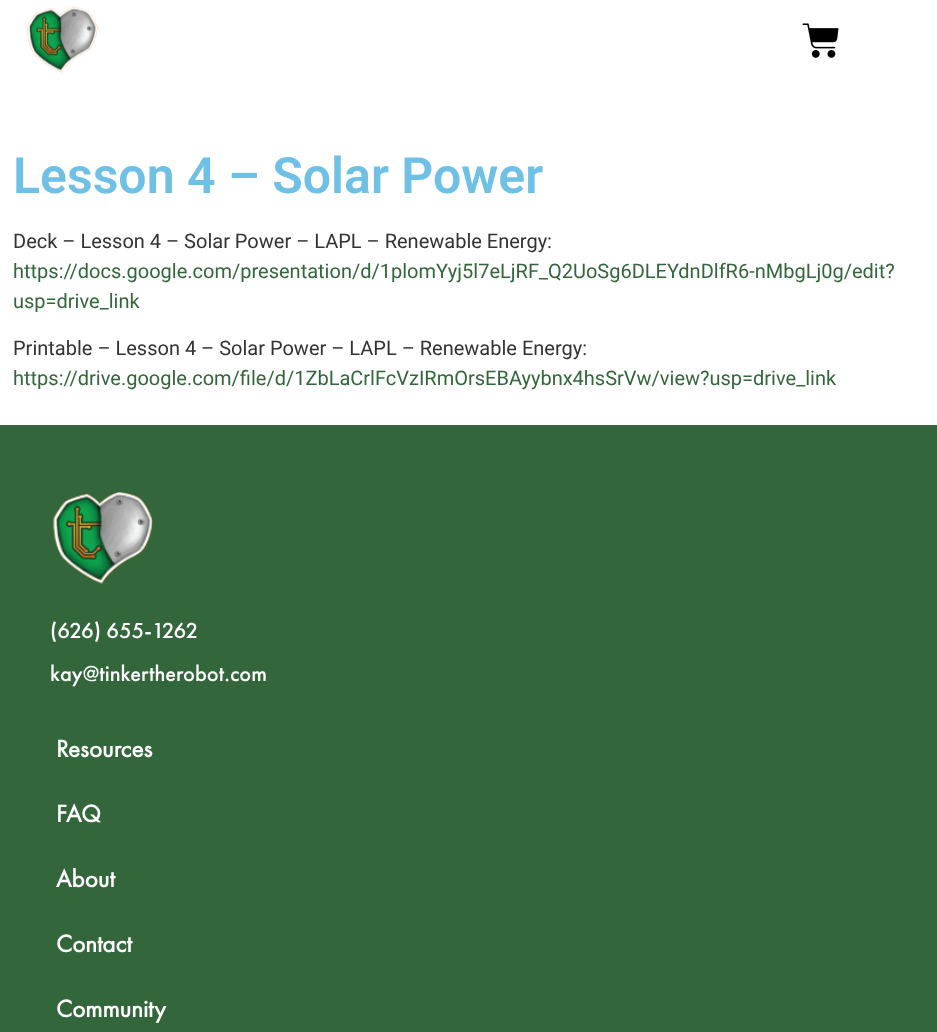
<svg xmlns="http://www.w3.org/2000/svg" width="937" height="1032">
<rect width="100%" height="100%" fill="#fff"/>
<image x="27" y="6" width="71" height="67" href="media/1.png"/>
<image x="802" y="23" width="37" height="35" href="media/2.png"/>
<text x="13" y="193" style="font-family:Roboto;font-size:50px;font-weight:600;fill:#6ec1e4">Lesson 4 – Solar Power</text>
<text x="13" y="248" style="font-family:Roboto;font-size:20px;fill:#333">Deck – Lesson 4 – Solar Power – LAPL – Renewable Energy:</text>
<text x="13" y="278" style="font-family:Roboto;font-size:20px;fill:#33673b">https://docs.google.com/presentation/d/1plomYyj5l7eLjRF_Q2UoSg6DLEYdnDlfR6-nMbgLj0g/edit?</text>
<text x="13" y="308" style="font-family:Roboto;font-size:20px;fill:#33673b">usp=drive_link</text>
<text x="13" y="355" style="font-family:Roboto;font-size:20px;fill:#333">Printable – Lesson 4 – Solar Power – LAPL – Renewable Energy:</text>
<text x="13" y="385" style="font-family:Roboto;font-size:20px;fill:#33673b">https://drive.google.com/file/d/1ZbLaCrlFcVzIRmOrsEBAyybnx4hsSrVw/view?usp=drive_link</text>
<rect y="425" width="937" height="607" fill="#33673b"/>
<image x="53" y="492" width="100" height="92" href="media/3.png"/>
<text x="50" y="638" style="font-family:Futura PT;font-size:22.5px;font-weight:500;fill:#fff">(626) 655-1262</text>
<text x="50" y="681" style="font-family:Futura PT;font-size:22.5px;font-weight:500;fill:#fff">kay@tinkertherobot.com</text>
<text x="56" y="757" style="font-family:Futura PT;font-size:25px;font-weight:bold;fill:#fff">Resources</text>
<text x="56" y="822" style="font-family:Futura PT;font-size:25px;font-weight:bold;fill:#fff">FAQ</text>
<text x="56" y="887" style="font-family:Futura PT;font-size:25px;font-weight:bold;fill:#fff">About</text>
<text x="56" y="952" style="font-family:Futura PT;font-size:25px;font-weight:bold;fill:#fff">Contact</text>
<text x="56" y="1017" style="font-family:Futura PT;font-size:25px;font-weight:bold;fill:#fff">Community</text>
</svg>
